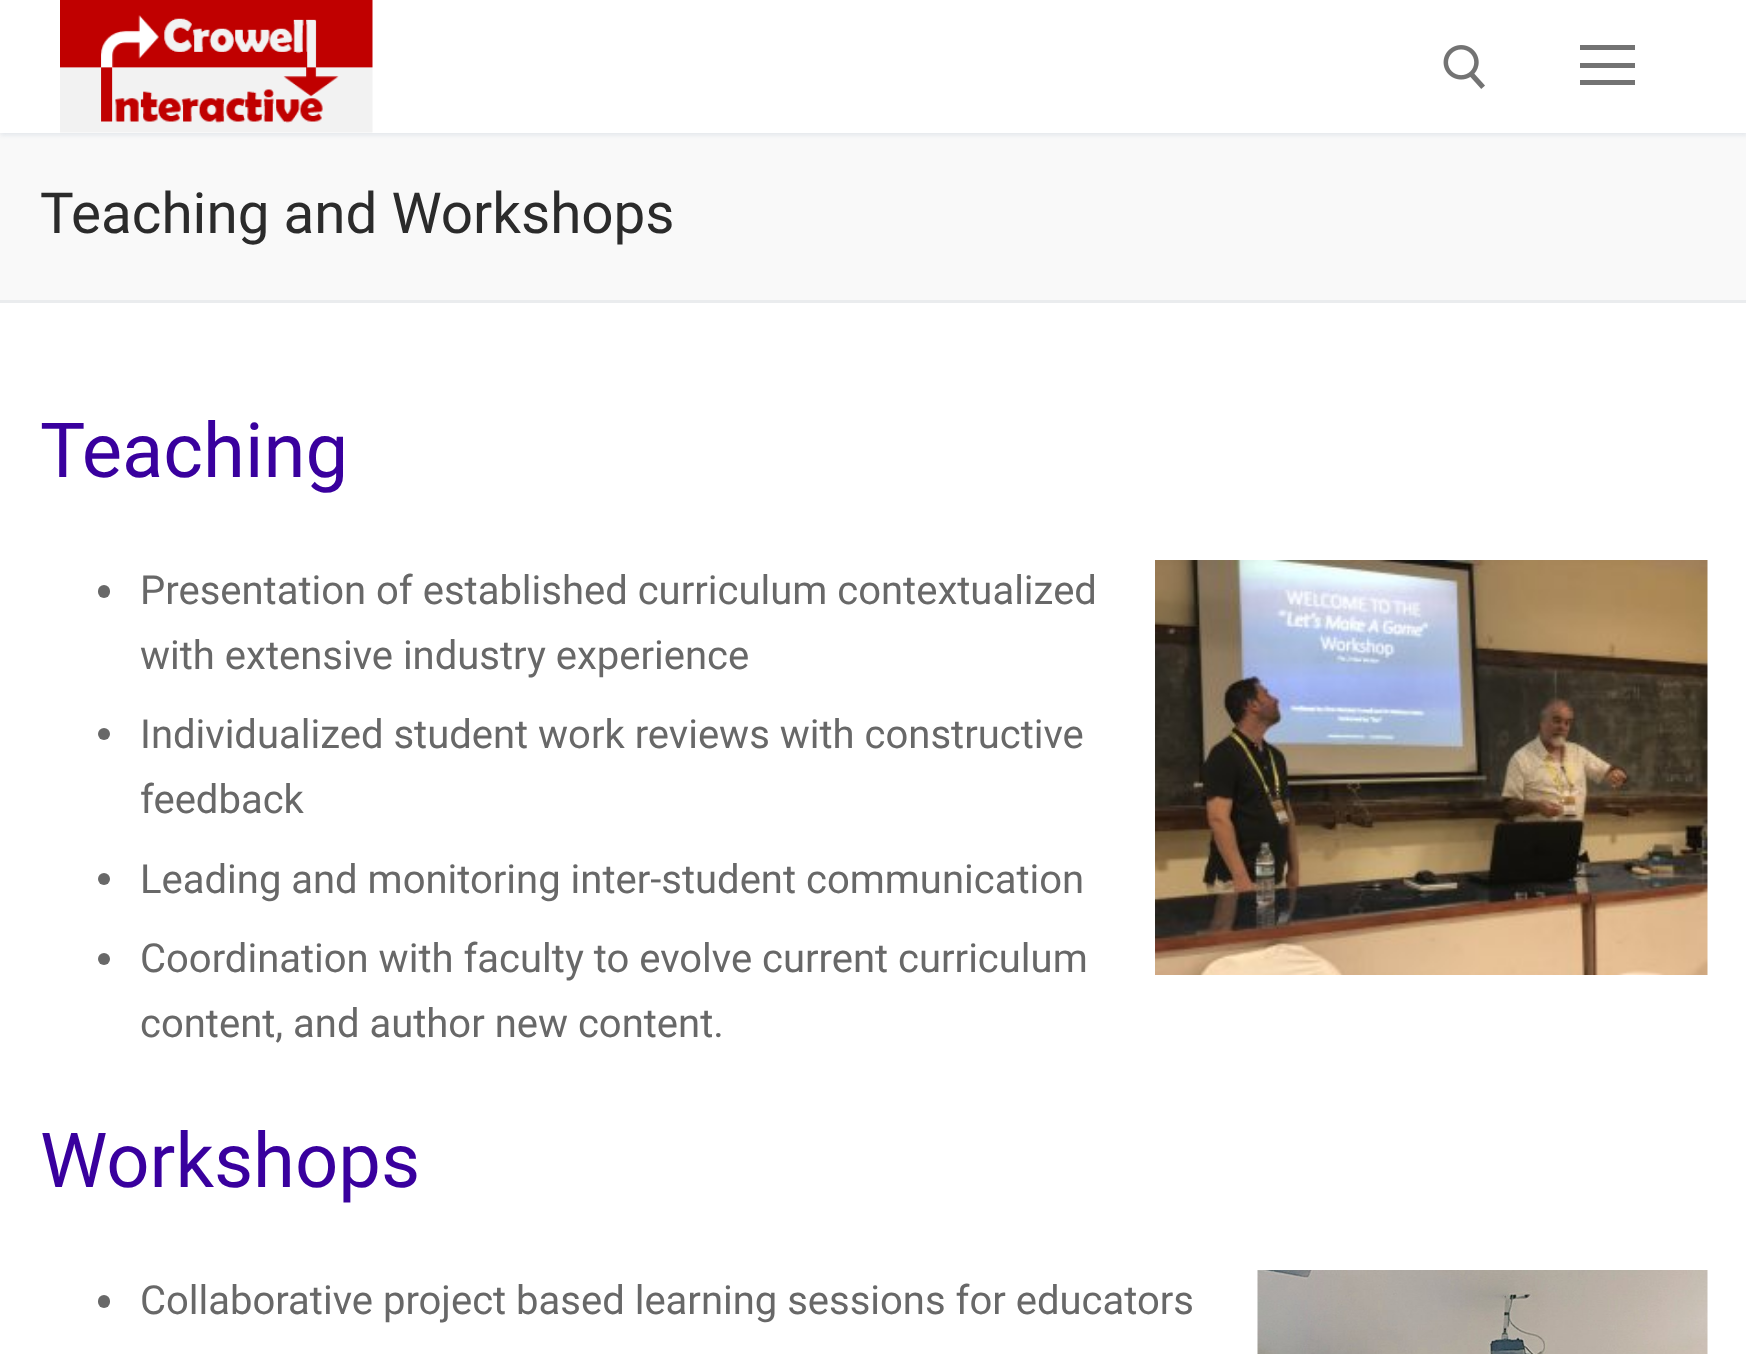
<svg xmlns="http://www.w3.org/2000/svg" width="1746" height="1354">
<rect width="100%" height="100%" fill="#fff"/>
<rect y="133" width="1746" height="167" fill="#f9f9f9"/>
<rect y="3" width="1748" height="132" fill="#e1e5ea" filter="blur(2.5px)"/>
<rect width="1746" height="133" fill="#fff"/>
<image x="60" y="0" width="313" height="133" href="media/1.png"/>
<image x="1443" y="45" width="42" height="44" href="media/2.png"/>
<rect x="1580" y="63" width="55" height="5" fill="#737373"/>
<rect x="1580" y="45" width="55" height="5" fill="#737373"/>
<rect x="1580" y="80" width="55" height="5" fill="#737373"/>
<rect y="300" width="1746" height="3" fill="#eaecee"/>
<text x="40" y="233" style="font-family:Roboto;font-size:56.6px;fill:#2b2b2b">Teaching and Workshops</text>
<text x="40" y="477" style="font-family:Roboto;font-size:76px;fill:#39009e">Teaching</text>
<rect x="98" y="585" width="12" height="13" rx="6" fill="#686868"/>
<text x="140" y="604" style="font-family:Roboto;font-size:40px;fill:#686868">Presentation of established curriculum contextualized</text>
<text x="140" y="669" style="font-family:Roboto;font-size:40px;fill:#686868">with extensive industry experience</text>
<circle cx="104" cy="734" r="6" fill="#686868"/>
<text x="140" y="748" style="font-family:Roboto;font-size:40px;fill:#686868">Individualized student work reviews with constructive</text>
<text x="140" y="813" style="font-family:Roboto;font-size:40px;fill:#686868">feedback</text>
<circle cx="104" cy="879" r="6" fill="#686868"/>
<text x="140" y="893" style="font-family:Roboto;font-size:40px;fill:#686868">Leading and monitoring inter-student communication</text>
<circle cx="104" cy="959" r="6" fill="#686868"/>
<text x="140" y="972" style="font-family:Roboto;font-size:40px;fill:#686868">Coordination with faculty to evolve current curriculum</text>
<text x="140" y="1037" style="font-family:Roboto;font-size:40px;fill:#686868">content, and author new content.</text>
<image x="1155" y="560" width="553" height="415" href="media/3.png"/>
<text x="40" y="1187" style="font-family:Roboto;font-size:76px;fill:#39009e">Workshops</text>
<rect x="98" y="1295" width="12" height="13" rx="6" fill="#686868"/>
<text x="140" y="1314" style="font-family:Roboto;font-size:40px;fill:#686868">Collaborative project based learning sessions for educators</text>
<image x="1257" y="1270" width="451" height="84" href="media/4.png"/>
</svg>
